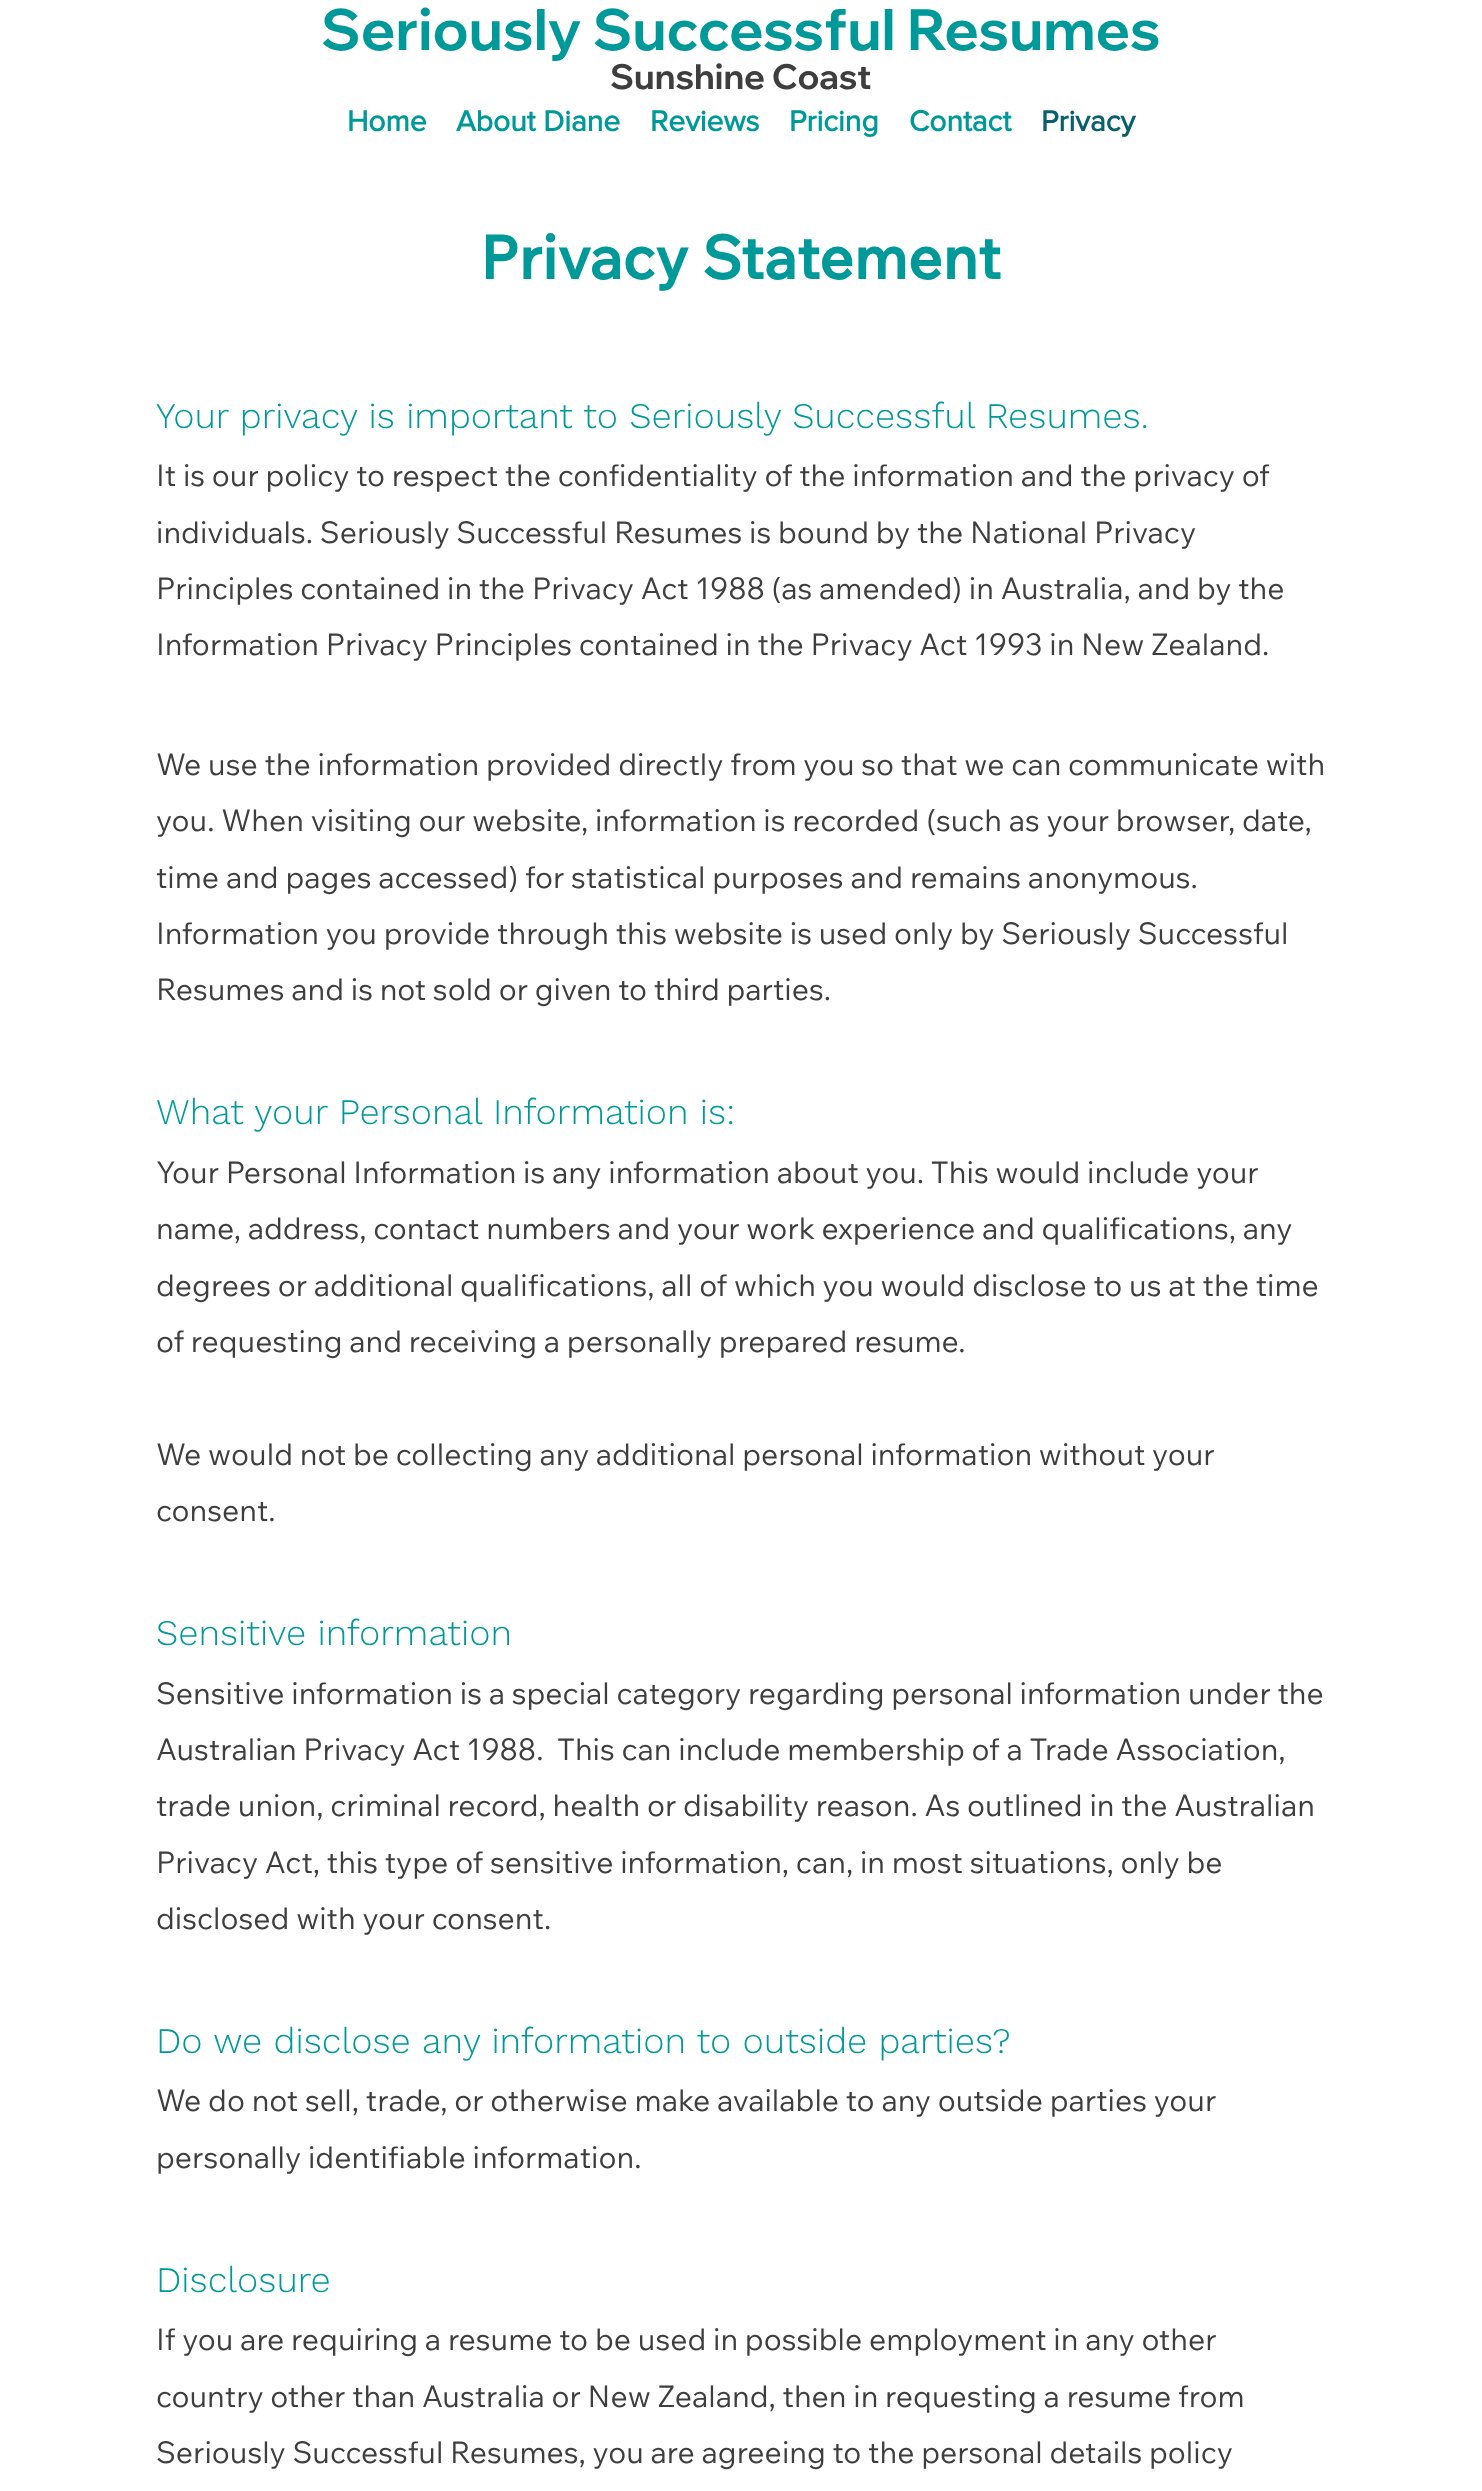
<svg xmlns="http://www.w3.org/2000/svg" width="1482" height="2491">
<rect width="100%" height="100%" fill="#fff"/>
<text x="321" y="50" style="font-family:Wix Madefor Display;font-size:57px;font-weight:bold;fill:#099">Seriously Successful Resumes</text>
<text x="610" y="89" style="font-family:Wix Madefor Display;font-size:34.5px;font-weight:bold;fill:#3e3e3e">Sunshine Coast</text>
<text x="347" y="131" style="font-family:'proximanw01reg';font-size:30px;font-weight:bold;fill:#099">Home</text>
<text x="456" y="131" style="font-family:'proximanw01reg';font-size:30px;font-weight:bold;fill:#099">About Diane</text>
<text x="650" y="131" style="font-family:'proximanw01reg';font-size:30px;font-weight:bold;fill:#099">Reviews</text>
<text x="789" y="131" style="font-family:'proximanw01reg';font-size:30px;font-weight:bold;fill:#099">Pricing</text>
<text x="909" y="131" style="font-family:'proximanw01reg';font-size:30px;font-weight:bold;fill:#099">Contact</text>
<text x="1041" y="131" style="font-family:'proximanw01reg';font-size:30px;font-weight:bold;fill:#085f6d">Privacy</text>
<text x="480" y="279" style="font-family:Wix Madefor Text;font-size:60px;font-weight:bold;fill:#099">Privacy Statement</text>
<text x="156" y="428" style="font-family:Work Sans;font-size:36px;font-weight:300;fill:#099">Your privacy is important to Seriously Successful Resumes.</text>
<text x="156" y="486" style="font-family:Wix Madefor Text;font-size:30px;fill:#3e3e3e">It is our policy to respect the confidentiality of the information and the privacy of</text>
<text x="156" y="543" style="font-family:Wix Madefor Text;font-size:30px;fill:#3e3e3e">individuals. Seriously Successful Resumes is bound by the National Privacy</text>
<text x="156" y="599" style="font-family:Wix Madefor Text;font-size:30px;fill:#3e3e3e">Principles contained in the Privacy Act 1988 (as amended) in Australia, and by the</text>
<text x="156" y="655" style="font-family:Wix Madefor Text;font-size:30px;fill:#3e3e3e">Information Privacy Principles contained in the Privacy Act 1993 in New Zealand.</text>
<text x="156" y="775" style="font-family:Wix Madefor Text;font-size:30px;fill:#3e3e3e">We use the information provided directly from you so that we can communicate with</text>
<text x="156" y="831" style="font-family:Wix Madefor Text;font-size:30px;fill:#3e3e3e">you. When visiting our website, information is recorded (such as your browser, date,</text>
<text x="156" y="888" style="font-family:Wix Madefor Text;font-size:30px;fill:#3e3e3e">time and pages accessed) for statistical purposes and remains anonymous.</text>
<text x="156" y="944" style="font-family:Wix Madefor Text;font-size:30px;fill:#3e3e3e">Information you provide through this website is used only by Seriously Successful</text>
<text x="156" y="1000" style="font-family:Wix Madefor Text;font-size:30px;fill:#3e3e3e">Resumes and is not sold or given to third parties.</text>
<text x="156" y="1124" style="font-family:Work Sans;font-size:36px;font-weight:300;fill:#099">What your Personal Information is:</text>
<text x="156" y="1183" style="font-family:Wix Madefor Text;font-size:30px;fill:#3e3e3e">Your Personal Information is any information about you. This would include your</text>
<text x="156" y="1239" style="font-family:Wix Madefor Text;font-size:30px;fill:#3e3e3e">name, address, contact numbers and your work experience and qualifications, any</text>
<text x="156" y="1296" style="font-family:Wix Madefor Text;font-size:30px;fill:#3e3e3e">degrees or additional qualifications, all of which you would disclose to us at the time</text>
<text x="156" y="1352" style="font-family:Wix Madefor Text;font-size:30px;fill:#3e3e3e">of requesting and receiving a personally prepared resume.</text>
<text x="156" y="1465" style="font-family:Wix Madefor Text;font-size:30px;fill:#3e3e3e">We would not be collecting any additional personal information without your</text>
<text x="156" y="1521" style="font-family:Wix Madefor Text;font-size:30px;fill:#3e3e3e">consent.</text>
<text x="156" y="1645" style="font-family:Work Sans;font-size:36px;font-weight:300;fill:#099">Sensitive information</text>
<text x="156" y="1704" style="font-family:Wix Madefor Text;font-size:30px;fill:#3e3e3e">Sensitive information is a special category regarding personal information under the</text>
<text x="156" y="1760" style="font-family:Wix Madefor Text;font-size:30px;fill:#3e3e3e" xml:space="preserve">Australian Privacy Act 1988.  This can include membership of a Trade Association,</text>
<text x="156" y="1816" style="font-family:Wix Madefor Text;font-size:30px;fill:#3e3e3e">trade union, criminal record, health or disability reason. As outlined in the Australian</text>
<text x="156" y="1873" style="font-family:Wix Madefor Text;font-size:30px;fill:#3e3e3e">Privacy Act, this type of sensitive information, can, in most situations, only be</text>
<text x="156" y="1929" style="font-family:Wix Madefor Text;font-size:30px;fill:#3e3e3e">disclosed with your consent.</text>
<text x="156" y="2053" style="font-family:Work Sans;font-size:36px;font-weight:300;fill:#099">Do we disclose any information to outside parties?</text>
<text x="156" y="2111" style="font-family:Wix Madefor Text;font-size:30px;fill:#3e3e3e">We do not sell, trade, or otherwise make available to any outside parties your</text>
<text x="156" y="2168" style="font-family:Wix Madefor Text;font-size:30px;fill:#3e3e3e">personally identifiable information.</text>
<text x="156" y="2292" style="font-family:Work Sans;font-size:36px;font-weight:300;fill:#099">Disclosure</text>
<text x="156" y="2350" style="font-family:Wix Madefor Text;font-size:30px;fill:#3e3e3e">If you are requiring a resume to be used in possible employment in any other</text>
<text x="156" y="2407" style="font-family:Wix Madefor Text;font-size:30px;fill:#3e3e3e">country other than Australia or New Zealand, then in requesting a resume from</text>
<text x="156" y="2463" style="font-family:Wix Madefor Text;font-size:30px;fill:#3e3e3e">Seriously Successful Resumes, you are agreeing to the personal details policy</text>
</svg>
